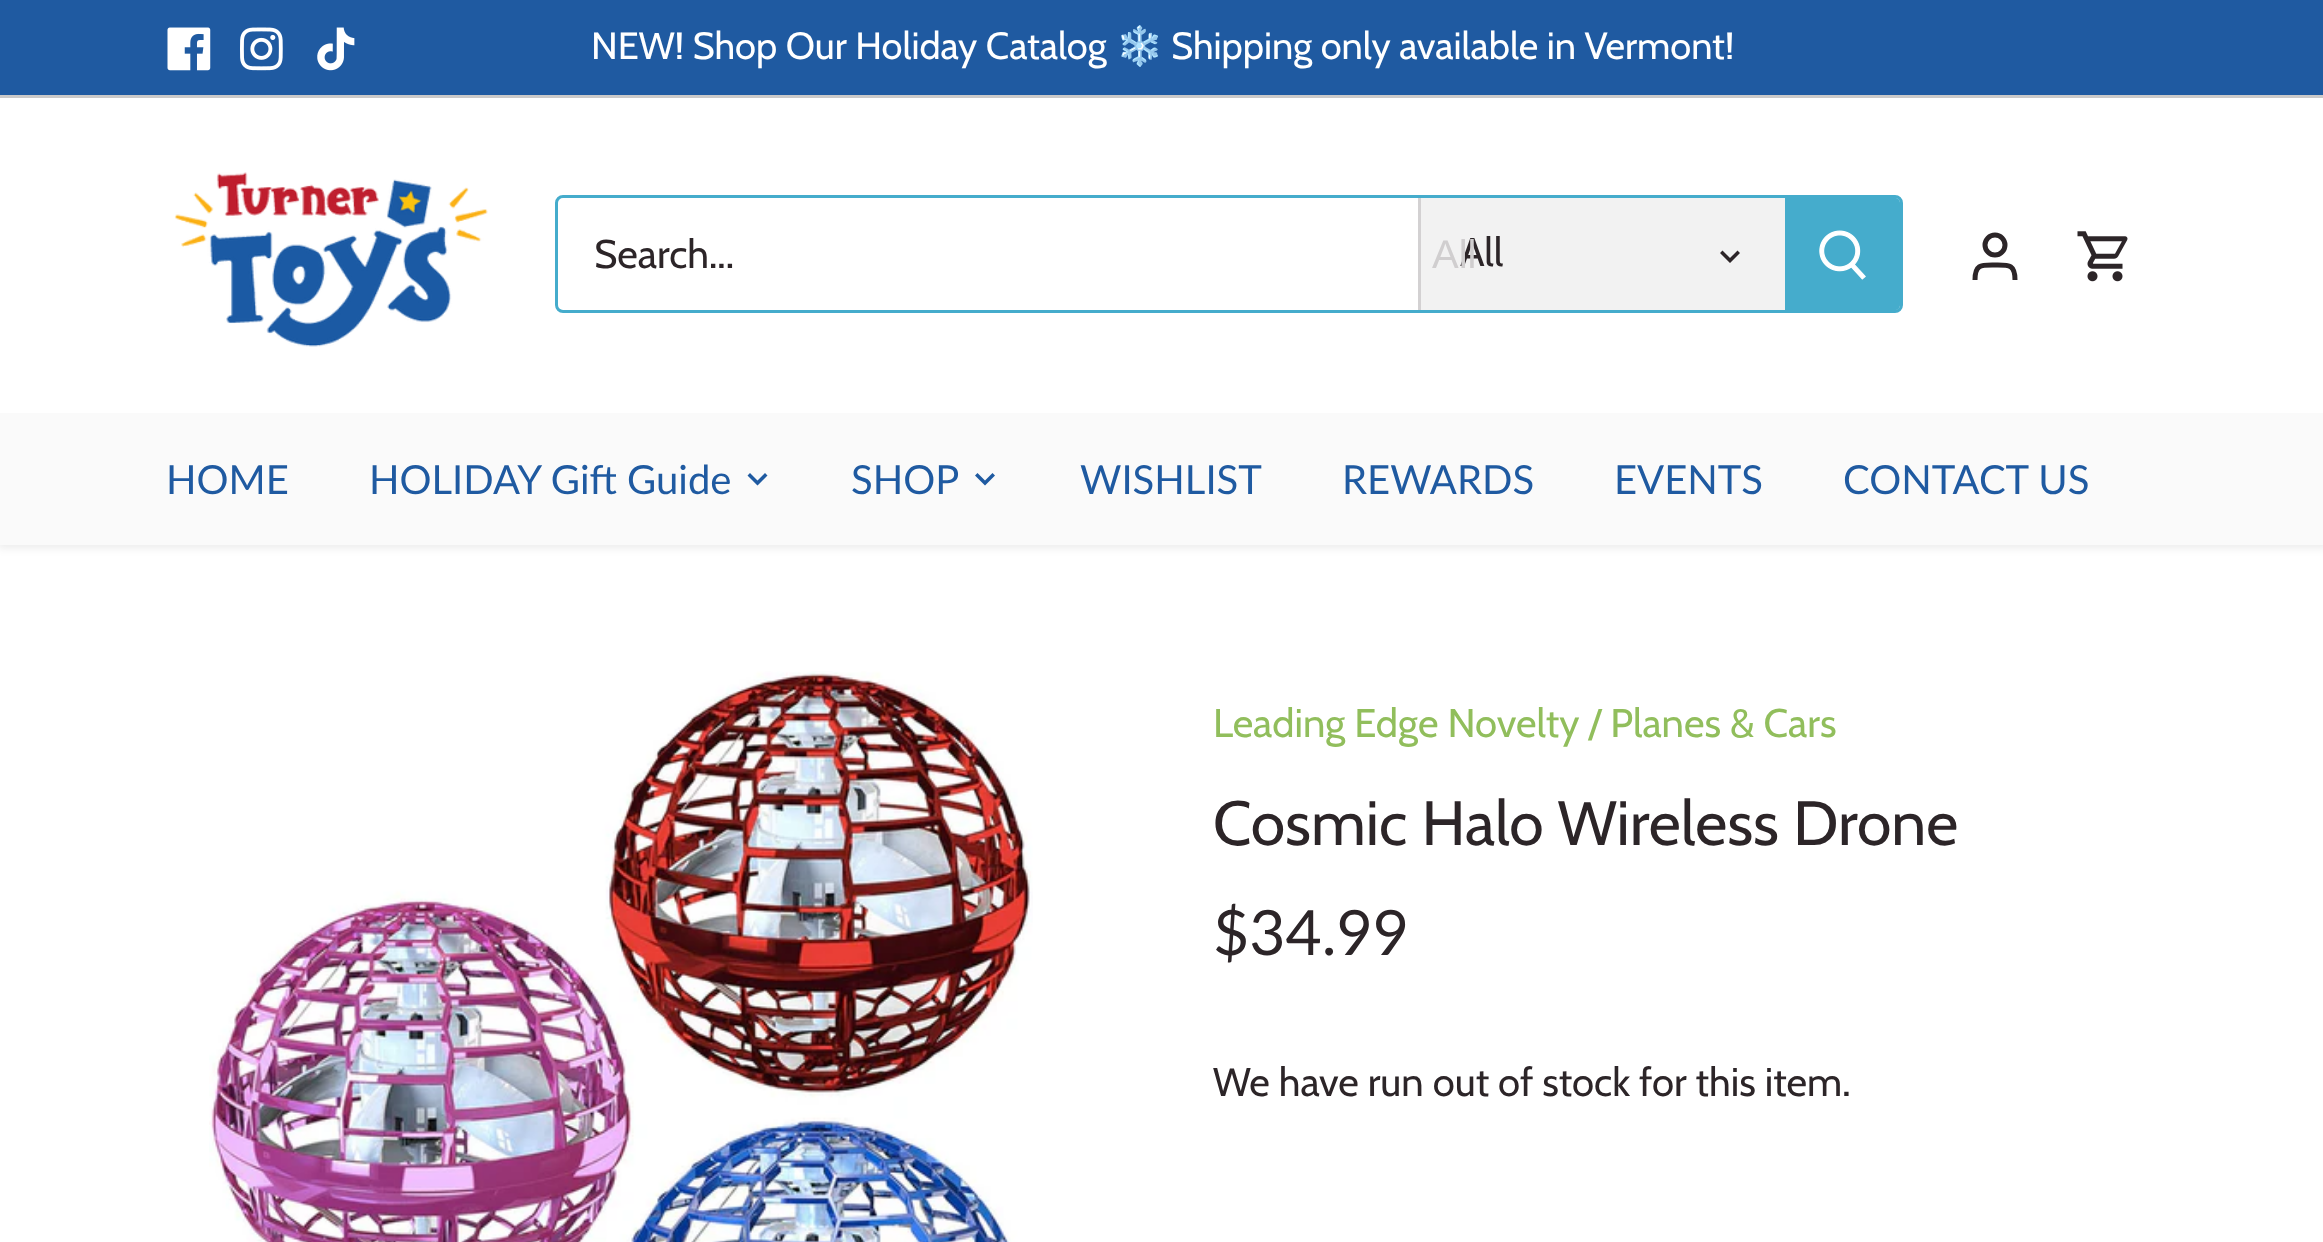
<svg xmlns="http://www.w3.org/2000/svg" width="2323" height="1242">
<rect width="100%" height="100%" fill="#fff"/>
<rect x="-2" y="95" width="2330" height="453" fill="#00000014" filter="blur(4px)"/>
<rect width="2323" height="95" fill="#1f5aa1"/>
<rect y="95" width="2323" height="3" fill="#cac9c9"/>
<image x="167" y="27" width="44" height="44" href="media/1.png"/>
<image x="240" y="27" width="43" height="44" href="media/2.png"/>
<image x="317" y="27" width="38" height="44" href="media/3.png"/>
<text x="591" y="59" style="font-family:Cabin;font-size:38px;fill:#fff">NEW! Shop Our Holiday Catalog</text>
<text x="1116" y="59" style="font-family:Noto Color Emoji;font-size:38px;fill:#fff">❄️</text>
<text x="1171" y="59" style="font-family:Cabin;font-size:38px;fill:#fff">Shipping only available in Vermont!</text>
<rect y="413" width="2323" height="132" fill="#fafafa"/>
<rect y="98" width="2323" height="315" fill="#fff"/>
<image x="174" y="172" width="314" height="175" href="media/4.png"/>
<rect x="556.5" y="196.5" width="1345" height="115" rx="6.5" fill="none" stroke="#45accc" stroke-width="3"/>
<text x="594" y="268" style="font-family:Cabin;font-size:40px;fill:#2c2528">Search...</text>
<rect x="1421" y="198" width="364" height="112" fill="#f2f2f2"/>
<rect x="1418" y="198" width="3" height="112" fill="#d3d1d2"/>
<text x="1460" y="266" style="font-family:Cabin;font-size:40px;fill:#2c2528">All</text>
<text x="1432" y="268" style="font-family:Liberation Sans;font-size:40px;fill:#d0cecf">All</text>
<path d="M1722.5 250.5l7.5 7.5l7.5-7.5l2.5 2.5l-10 10l-10-10z" fill="#2c2528"/>
<path d="M1785 198h110c3 0 5 2 5 5v102c0 3-2 5-5 5h-110z" fill="#45accc"/>
<image x="1819" y="230" width="47" height="50" href="media/5.png"/>
<circle cx="1995" cy="245" r="10" fill="none" stroke="#2c2528" stroke-width="5"/>
<path d="M2015 280c0-16-6-15-20-15c-14 0-20-1-20 15" fill="none" stroke="#2c2528" stroke-width="5"/>
<image x="2077" y="231" width="51" height="51" href="media/6.png"/>
<text x="166" y="494" style="font-family:Lato;font-size:40px;fill:#1f5aa1">HOME</text>
<text x="369" y="494" style="font-family:Lato;font-size:40px;fill:#1f5aa1">HOLIDAY Gift Guide</text>
<path d="M750 473l7.5 7.5l7.5-7.5l2.5 2.5l-10 10l-10-10z" fill="#1f5aa1"/>
<text x="851" y="494" style="font-family:Lato;font-size:40px;fill:#1f5aa1">SHOP</text>
<path d="M977.5 473l7.5 7.5l7.5-7.5l2.5 2.5l-10 10l-10-10z" fill="#1f5aa1"/>
<text x="1080" y="494" style="font-family:Lato;font-size:40px;fill:#1f5aa1">WISHLIST</text>
<text x="1342" y="494" style="font-family:Lato;font-size:40px;fill:#1f5aa1">REWARDS</text>
<text x="1614" y="494" style="font-family:Lato;font-size:40px;fill:#1f5aa1">EVENTS</text>
<text x="1843" y="494" style="font-family:Lato;font-size:40px;fill:#1f5aa1">CONTACT US</text>
<image x="209" y="671" width="824" height="571" href="media/7.png"/>
<text x="1213" y="737" style="font-family:Cabin;font-size:40px;fill:#91be5c">Leading Edge Novelty / Planes &amp; Cars</text>
<text x="1213" y="845" style="font-family:Cabin;font-size:62.5px;fill:#2c2528">Cosmic Halo Wireless Drone</text>
<text x="1213" y="955" style="font-family:Lato;font-size:62.5px;fill:#2c2528">$34.99</text>
<text x="1213" y="1096" style="font-family:Cabin;font-size:40px;fill:#2c2528">We have run out of stock for this item.</text>
</svg>
